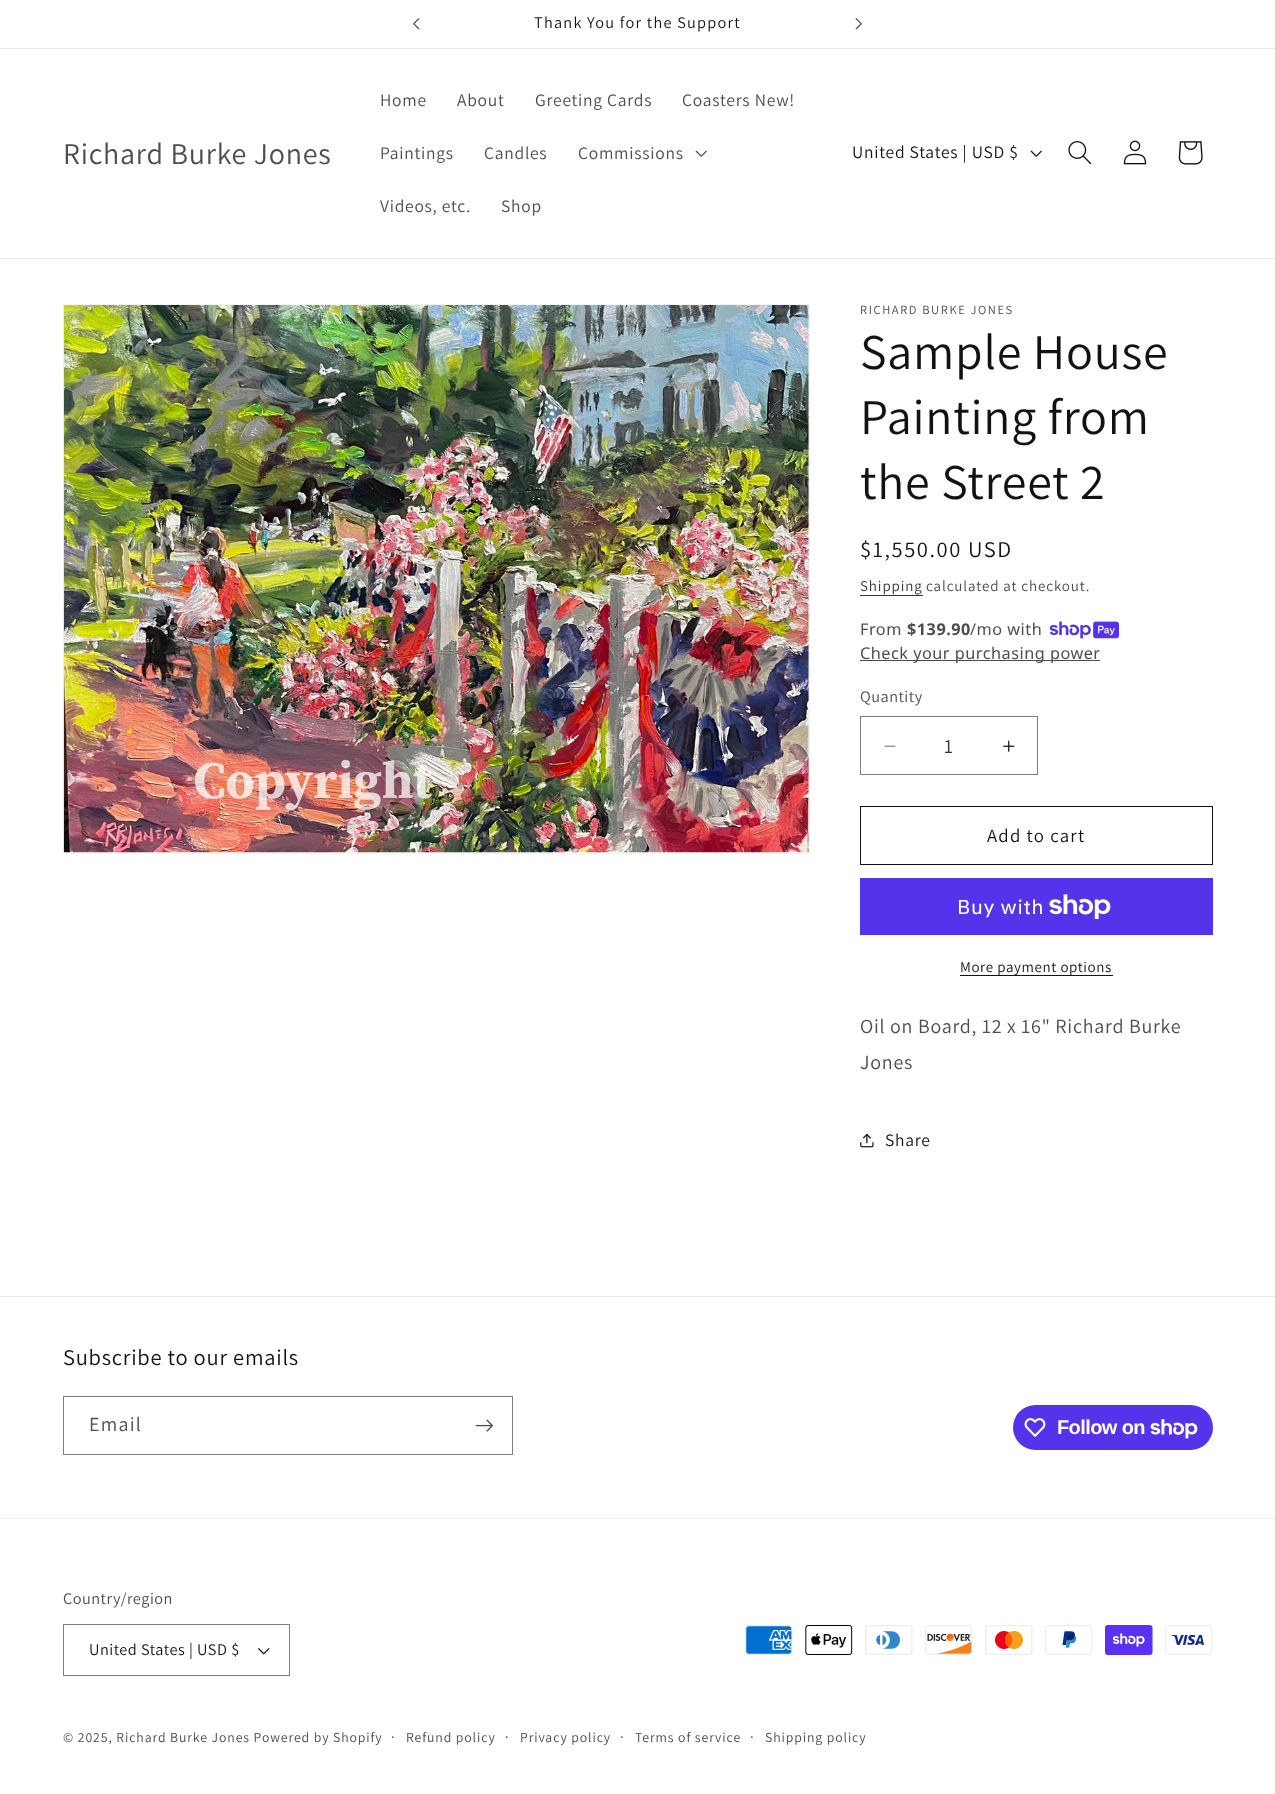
<svg xmlns="http://www.w3.org/2000/svg" width="1275" height="1794">
<rect width="100%" height="100%" fill="#fff"/>
<rect y="48" width="1275" height="1" fill="#ececec"/>
<image x="413" y="18" width="7" height="12" href="media/1.png"/>
<text x="534" y="28" style="font-family:Assistant;font-size:16.25px;letter-spacing:1.25px;fill:#121212">Thank You for the Support</text>
<image x="855" y="18" width="7" height="12" href="media/2.png"/>
<rect y="258" width="1275" height="1" fill="#ececec"/>
<text x="63" y="164" style="font-family:Assistant;font-size:30px;letter-spacing:0.75px;fill:#4d4d4d">Richard Burke Jones</text>
<text x="380" y="106" style="font-family:Assistant;font-size:17.5px;letter-spacing:0.75px;fill:#4d4d4d">Home</text>
<text x="457" y="106" style="font-family:Assistant;font-size:17.5px;letter-spacing:0.75px;fill:#4d4d4d">About</text>
<text x="535" y="106" style="font-family:Assistant;font-size:17.5px;letter-spacing:0.75px;fill:#4d4d4d">Greeting Cards</text>
<text x="682" y="106" style="font-family:Assistant;font-size:17.5px;letter-spacing:0.75px;fill:#4d4d4d">Coasters New!</text>
<text x="380" y="159" style="font-family:Assistant;font-size:17.5px;letter-spacing:0.75px;fill:#4d4d4d">Paintings</text>
<text x="484" y="159" style="font-family:Assistant;font-size:17.5px;letter-spacing:0.75px;fill:#4d4d4d">Candles</text>
<text x="578" y="159" style="font-family:Assistant;font-size:17.5px;letter-spacing:0.75px;fill:#4d4d4d">Commissions</text>
<image x="695" y="150" width="12" height="7" href="media/3.png"/>
<text x="380" y="212" style="font-family:Assistant;font-size:17.5px;letter-spacing:0.75px;fill:#4d4d4d">Videos, etc.</text>
<text x="501" y="212" style="font-family:Assistant;font-size:17.5px;letter-spacing:0.75px;fill:#4d4d4d">Shop</text>
<text x="852" y="158" style="font-family:Assistant;font-size:17.5px;letter-spacing:0.75px;fill:#121212">United States | USD $</text>
<image x="1030" y="150" width="12" height="7" href="media/4.png"/>
<image x="1068" y="141" width="24" height="24" href="media/5.png"/>
<image x="1123" y="140" width="24" height="25" href="media/6.png"/>
<image x="1178" y="141" width="25" height="24" href="media/7.png"/>
<rect x="63.5" y="304.5" width="746" height="549" fill="none" stroke="#f3f3f3"/>
<image x="63" y="305" width="746" height="548" href="media/8.png"/>
<text x="860" y="314" style="font-family:Assistant;font-size:12.5px;letter-spacing:1.6px;fill:#4d4d4d">RICHARD BURKE JONES</text>
<text x="860" y="369" style="font-family:Assistant;font-size:50px;letter-spacing:0.75px;fill:#121212">Sample House</text>
<text x="860" y="434" style="font-family:Assistant;font-size:50px;letter-spacing:0.75px;fill:#121212">Painting from</text>
<text x="860" y="499" style="font-family:Assistant;font-size:50px;letter-spacing:0.75px;fill:#121212">the Street 2</text>
<text x="860" y="557" style="font-family:Assistant;font-size:22.5px;letter-spacing:1.6px;fill:#121212">$1,550.00 USD</text>
<text x="860" y="591" style="font-family:Assistant;font-size:15px;letter-spacing:0.9px;fill:#363636">Shipping</text>
<rect x="860" y="595" width="63" height="1" fill="#363636"/>
<text x="926" y="591" style="font-family:Assistant;font-size:15px;letter-spacing:0.9px;fill:#4d4d4d">calculated at checkout.</text>
<text x="860" y="635" style="font-family:Noto Sans;font-size:16.25px;letter-spacing:0.5px;fill:#4d4d4d">From</text>
<text x="907" y="635" style="font-family:Noto Sans;font-size:16.25px;font-weight:bold;letter-spacing:0.5px;fill:#4d4d4d">$139.90</text>
<text x="970" y="635" style="font-family:Noto Sans;font-size:16.25px;letter-spacing:0.5px;fill:#4d4d4d">/mo with</text>
<image x="1049" y="621" width="70" height="18" href="media/9.png"/>
<rect x="860" y="660" width="240" height="1" fill="#4d4d4d"/>
<text x="860" y="659" style="font-family:Noto Sans;font-size:16.25px;letter-spacing:0.5px;fill:#4d4d4d">Check your purchasing power</text>
<text x="860" y="702" style="font-family:Assistant;font-size:16.25px;letter-spacing:0.5px;fill:#4d4d4d">Quantity</text>
<image x="884" y="745" width="12" height="2" href="media/10.png"/>
<image x="1003" y="740" width="12" height="12" href="media/11.png"/>
<rect x="860.5" y="716.5" width="177" height="58" fill="none" stroke="#7d7d7d"/>
<text x="944" y="753" style="font-family:Assistant;font-size:20px;fill:#363636">1</text>
<rect x="860.5" y="806.5" width="352" height="58" fill="none" stroke="#121212"/>
<text x="987" y="842" style="font-family:Assistant;font-size:18.75px;letter-spacing:1.25px;fill:#121212">Add to cart</text>
<rect x="860" y="878" width="353" height="57" fill="#5433eb"/>
<text x="957" y="914" style="font-family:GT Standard;font-size:20px;letter-spacing:0.75px;fill:#fff">Buy with</text>
<image x="1049" y="894" width="62" height="25" href="media/12.png"/>
<rect x="960" y="975" width="153" height="1" fill="#121212"/>
<text x="960" y="972" style="font-family:Assistant;font-size:15px;letter-spacing:0.6px;fill:#121212">More payment options</text>
<text x="860" y="1033" style="font-family:Assistant;font-size:20px;letter-spacing:0.75px;fill:#4d4d4d">Oil on Board, 12 x 16" Richard Burke</text>
<text x="860" y="1069" style="font-family:Assistant;font-size:20px;letter-spacing:0.75px;fill:#4d4d4d">Jones</text>
<image x="860" y="1133" width="14" height="15" href="media/13.png"/>
<text x="885" y="1146" style="font-family:Assistant;font-size:17.5px;letter-spacing:0.75px;fill:#121212">Share</text>
<rect y="1296" width="1275" height="1" fill="#ececec"/>
<text x="63" y="1365" style="font-family:Assistant;font-size:22.5px;letter-spacing:0.75px;fill:#121212">Subscribe to our emails</text>
<rect x="63.5" y="1396.5" width="449" height="58" fill="none" stroke="#7d7d7d"/>
<text x="89" y="1431" style="font-family:Assistant;font-size:20px;letter-spacing:1.25px;fill:#4d4d4d">Email</text>
<image x="475" y="1419" width="18" height="13" href="media/14.png"/>
<rect x="1013" y="1405" width="200" height="45" rx="22.5" fill="#5433eb"/>
<image x="1024" y="1418" width="22" height="19" href="media/15.png"/>
<text x="1057" y="1434" style="font-family:Liberation Sans;font-size:20px;font-weight:bold;letter-spacing:-0.6px;fill:#fff">Follow on</text>
<image x="1150" y="1419" width="48" height="20" href="media/16.png"/>
<rect y="1518" width="1275" height="1" fill="#ececec"/>
<text x="63" y="1604" style="font-family:Assistant;font-size:16.25px;letter-spacing:0.5px;fill:#4d4d4d">Country/region</text>
<image x="258" y="1648" width="12" height="7" href="media/17.png"/>
<rect x="63.5" y="1624.5" width="226" height="51" fill="none" stroke="#7d7d7d"/>
<text x="89" y="1655" style="font-family:Assistant;font-size:16.25px;letter-spacing:0.5px;fill:#121212">United States | USD $</text>
<image x="745" y="1625" width="48" height="30" href="media/18.png"/>
<image x="805" y="1625" width="48" height="30" href="media/19.png"/>
<image x="865" y="1625" width="48" height="30" href="media/20.png"/>
<image x="925" y="1625" width="48" height="30" href="media/21.png"/>
<image x="985" y="1625" width="48" height="30" href="media/22.png"/>
<image x="1045" y="1625" width="48" height="30" href="media/23.png"/>
<image x="1105" y="1625" width="48" height="30" href="media/24.png"/>
<image x="1165" y="1625" width="48" height="30" href="media/25.png"/>
<text x="63" y="1742" style="font-family:Assistant;font-size:13.75px;letter-spacing:0.9px;fill:#4d4d4d">© 2025, Richard Burke Jones Powered by Shopify</text>
<text x="391" y="1742" style="font-family:Assistant;font-size:15px;letter-spacing:0.9px;fill:#4d4d4d">·</text>
<text x="406" y="1742" style="font-family:Assistant;font-size:13.75px;letter-spacing:0.9px;fill:#4d4d4d">Refund policy</text>
<text x="505" y="1742" style="font-family:Assistant;font-size:15px;letter-spacing:0.9px;fill:#4d4d4d">·</text>
<text x="520" y="1742" style="font-family:Assistant;font-size:13.75px;letter-spacing:0.9px;fill:#4d4d4d">Privacy policy</text>
<text x="620" y="1742" style="font-family:Assistant;font-size:15px;letter-spacing:0.9px;fill:#4d4d4d">·</text>
<text x="635" y="1742" style="font-family:Assistant;font-size:13.75px;letter-spacing:0.9px;fill:#4d4d4d">Terms of service</text>
<text x="750" y="1742" style="font-family:Assistant;font-size:15px;letter-spacing:0.9px;fill:#4d4d4d">·</text>
<text x="765" y="1742" style="font-family:Assistant;font-size:13.75px;letter-spacing:0.9px;fill:#4d4d4d">Shipping policy</text>
</svg>
